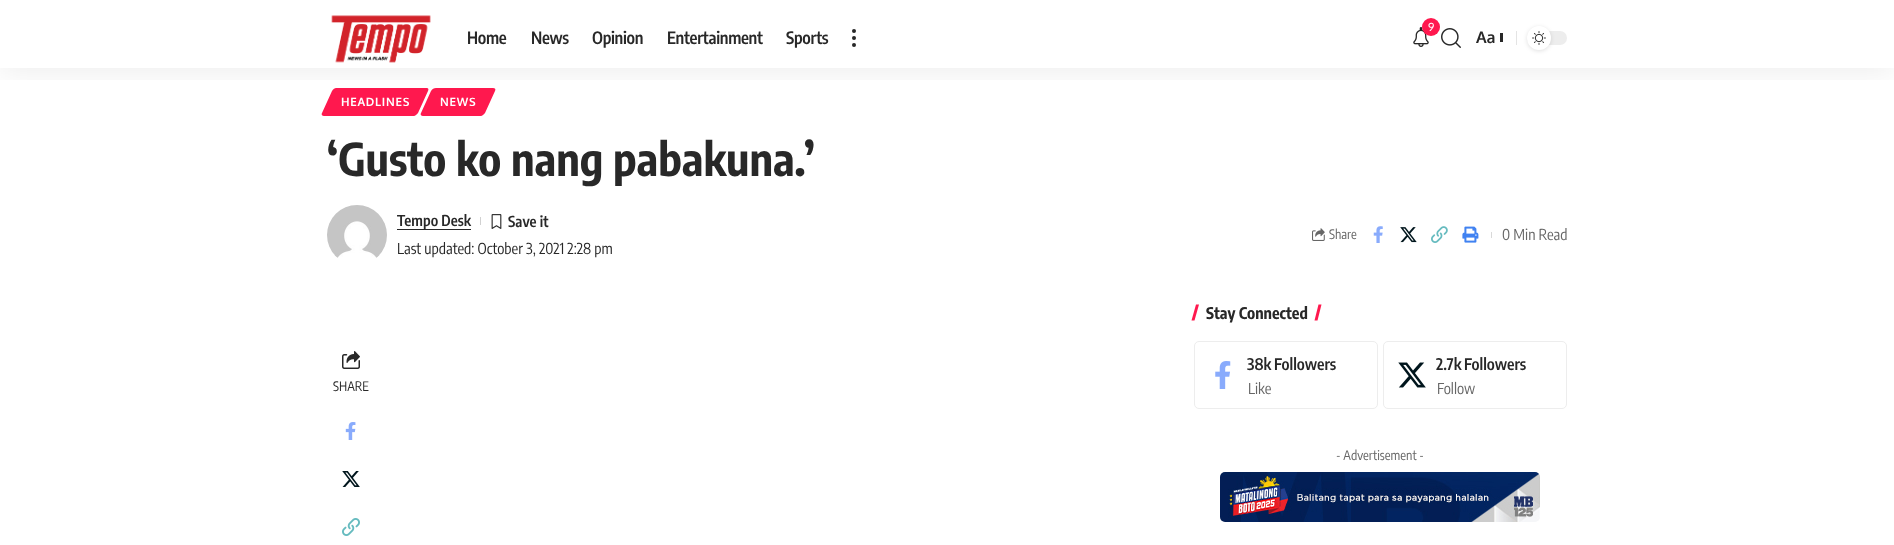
<svg xmlns="http://www.w3.org/2000/svg" width="1894" height="545">
<defs>
<clipPath id="clip1"><rect x="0" y="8" width="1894" height="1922"/></clipPath>
<clipPath id="clip2"><rect x="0" y="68" width="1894" height="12"/></clipPath>
</defs>
<rect width="100%" height="100%" fill="#fff"/>
<path d="M336 88h91c1 0 2 1 1 3l-10 22c-1 1-3 3-4 3h-90c-2 0-3-2-2-3l10-22c1-2 3-3 4-3z" fill="#ff184e"/>
<path d="M436 88h57c2 0 3 1 2 3l-10 22c-1 1-3 3-4 3h-58c-2 0-3-2-2-3l10-22c1-2 3-3 5-3z" fill="#ff184e"/>
<g clip-path="url(#clip1)">
<g clip-path="url(#clip2)">
<rect y="12" width="1894" height="60" fill="#00000012" filter="blur(15px)"/>
</g>
</g>
<image x="331" y="15" width="100" height="48" href="media/1.png"/>
<text x="467" y="44" style="font-family:Encode Sans Condensed;font-size:17px;font-weight:600;letter-spacing:-0.3px;fill:#282828">Home</text>
<text x="531" y="44" style="font-family:Encode Sans Condensed;font-size:17px;font-weight:600;letter-spacing:-0.3px;fill:#282828">News</text>
<text x="592" y="44" style="font-family:Encode Sans Condensed;font-size:17px;font-weight:600;letter-spacing:-0.3px;fill:#282828">Opinion</text>
<text x="667" y="44" style="font-family:Encode Sans Condensed;font-size:17px;font-weight:600;letter-spacing:-0.3px;fill:#282828">Entertainment</text>
<text x="786" y="44" style="font-family:Encode Sans Condensed;font-size:17px;font-weight:600;letter-spacing:-0.3px;fill:#282828">Sports</text>
<circle cx="854" cy="31" r="2" fill="#282828"/>
<circle cx="854" cy="38" r="2" fill="#282828"/>
<circle cx="854" cy="45" r="2" fill="#282828"/>
<image x="1413" y="27" width="16" height="20" href="media/2.png"/>
<circle cx="1431" cy="27" r="9" fill="#ff184e"/>
<text x="1428" y="31" style="font-family:Oxygen;font-size:11px;fill:#fff">9</text>
<rect x="1516" y="31" width="1" height="14" fill="#e4e4e4"/>
<rect x="1527" y="31" width="40" height="14" rx="7" fill="#ededed"/>
<rect x="1527" y="27" width="24" height="24" rx="12" fill="#0000001f" filter="blur(2px)"/>
<circle cx="1539" cy="38" r="12" fill="#fff"/>
<image x="1532" y="31" width="14" height="14" href="media/3.png"/>
<image x="1441" y="28" width="20" height="20" href="media/4.png"/>
<text x="1476" y="43" style="font-family:Oxygen;font-size:16px;font-weight:bold;fill:#282828">Aa</text>
<rect x="1500" y="33" width="3" height="9" fill="#282828"/>
<text x="341" y="106" style="font-family:Oxygen;font-size:11.5px;font-weight:bold;letter-spacing:0.75px;fill:#fff">HEADLINES</text>
<text x="440" y="106" style="font-family:Oxygen;font-size:11.5px;font-weight:bold;letter-spacing:0.75px;fill:#fff">NEWS</text>
<text x="327" y="176" style="font-family:Encode Sans Condensed;font-size:45px;font-weight:bold;fill:#282828">‘Gusto ko nang pabakuna.’</text>
<image x="327" y="205" width="60" height="53" href="media/5.png"/>
<rect x="397" y="229" width="74" height="1" fill="#282828"/>
<text x="397" y="226" style="font-family:Encode Sans Condensed;font-size:15px;font-weight:600;fill:#282828">Tempo Desk</text>
<rect x="480" y="217" width="1" height="8" fill="#d1d1d1"/>
<image x="491" y="214" width="11" height="15" href="media/6.png"/>
<text x="508" y="227" style="font-family:Encode Sans Condensed;font-size:15px;font-weight:600;fill:#282828">Save it</text>
<text x="397" y="254" style="font-family:Encode Sans Condensed;font-size:15px;fill:#282828">Last updated: October 3, 2021 2:28 pm</text>
<image x="1312" y="228" width="13" height="13" href="media/7.png"/>
<text x="1329" y="239" style="font-family:Encode Sans Condensed;font-size:13px;fill:#666">Share</text>
<image x="1373" y="226" width="10" height="17" href="media/8.png"/>
<image x="1400" y="227" width="17" height="16" href="media/9.png"/>
<image x="1431" y="226" width="17" height="17" href="media/10.png"/>
<image x="1462" y="226" width="17" height="17" href="media/11.png"/>
<rect x="1491" y="232" width="1" height="6" fill="#d9d9d9"/>
<text x="1502" y="240" style="font-family:Encode Sans Condensed;font-size:15px;fill:#666">0 Min Read</text>
<image x="342" y="351" width="18" height="18" href="media/12.png"/>
<text x="333" y="391" style="font-family:Encode Sans Condensed;font-size:13px;fill:#282828">SHARE</text>
<image x="345" y="422" width="11" height="18" href="media/13.png"/>
<image x="342" y="471" width="18" height="16" href="media/14.png"/>
<image x="342" y="518" width="18" height="18" href="media/15.png"/>
<path d="M1318.5 304.5h3l-4 16h-3z" fill="#ff184e"/>
<path d="M1196 304.5h3l-4.5 16h-3z" fill="#ff184e"/>
<text x="1206" y="319" style="font-family:Encode Sans Condensed;font-size:16px;font-weight:bold;fill:#282828">Stay Connected</text>
<rect x="1194.5" y="341.5" width="183" height="67" rx="4.5" fill="none" stroke="#ededed"/>
<image x="1215" y="361" width="16" height="28" href="media/16.png"/>
<text x="1247" y="370" style="font-family:Encode Sans Condensed;font-size:16px;font-weight:600;fill:#282828">38k</text>
<text x="1274" y="370" style="font-family:Encode Sans Condensed;font-size:16px;font-weight:600;fill:#282828">Followers</text>
<text x="1248" y="394" style="font-family:Encode Sans Condensed;font-size:15px;fill:#666">Like</text>
<rect x="1383.5" y="341.5" width="183" height="67" rx="4.5" fill="none" stroke="#ededed"/>
<image x="1398" y="362" width="28" height="26" href="media/17.png"/>
<text x="1436" y="370" style="font-family:Encode Sans Condensed;font-size:16px;font-weight:600;fill:#282828">2.7k</text>
<text x="1464" y="370" style="font-family:Encode Sans Condensed;font-size:16px;font-weight:600;fill:#282828">Followers</text>
<text x="1437" y="394" style="font-family:Encode Sans Condensed;font-size:15px;fill:#666">Follow</text>
<text x="1336" y="460" style="font-family:Encode Sans Condensed;font-size:13px;fill:#666">- Advertisement -</text>
<image x="1220" y="472" width="320" height="50" href="media/18.png"/>
</svg>
